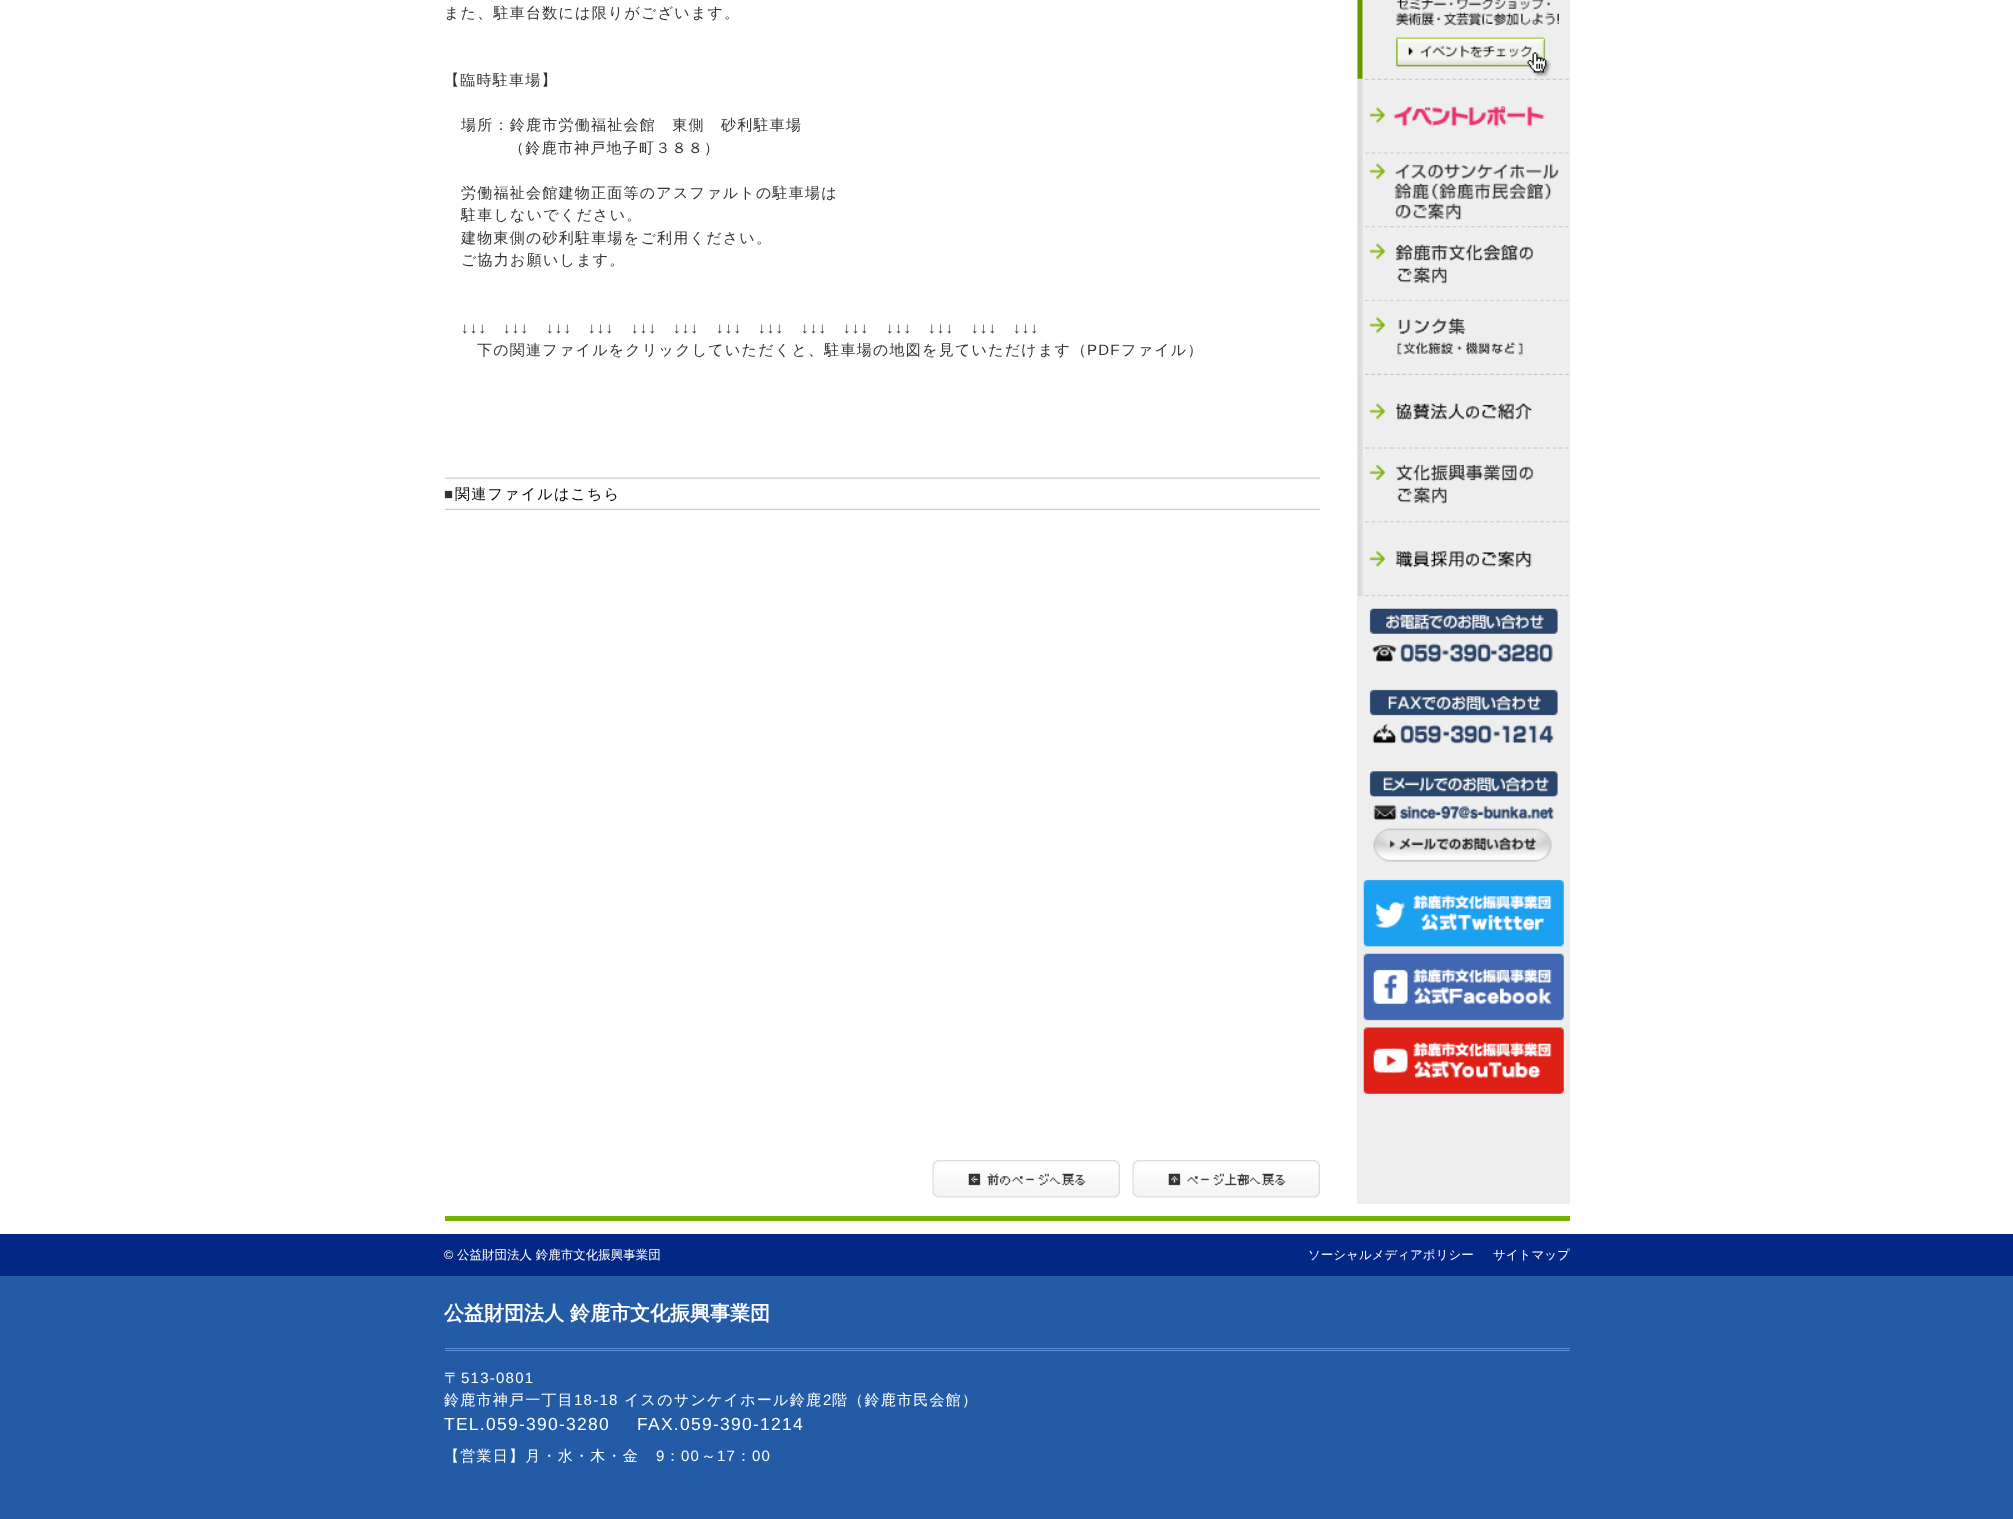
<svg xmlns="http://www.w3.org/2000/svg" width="2013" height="1519">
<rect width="100%" height="100%" fill="#fff"/>
<rect x="445" y="1216" width="1125" height="5" fill="#76b201"/>
<rect x="1357" width="213" height="1204" fill="#eee"/>
<text x="444" y="18" style="font-family:WenQuanYi Zen Hei;font-size:15px;font-weight:500;letter-spacing:1.25px;fill:#333">また、駐車台数には限りがございます。</text>
<text x="444" y="85" style="font-family:WenQuanYi Zen Hei;font-size:15px;font-weight:500;letter-spacing:1.25px;fill:#333">【臨時駐車場】</text>
<text x="461" y="130" style="font-family:WenQuanYi Zen Hei;font-size:15px;font-weight:500;letter-spacing:1.25px;fill:#333">場所：鈴鹿市労働福祉会館　東側　砂利駐車場</text>
<text x="509" y="153" style="font-family:WenQuanYi Zen Hei;font-size:15px;font-weight:500;letter-spacing:1.25px;fill:#333">（鈴鹿市神戸地子町３８８）</text>
<text x="461" y="198" style="font-family:WenQuanYi Zen Hei;font-size:15px;font-weight:500;letter-spacing:1.25px;fill:#333">労働福祉会館建物正面等のアスファルトの駐車場は</text>
<text x="461" y="220" style="font-family:WenQuanYi Zen Hei;font-size:15px;font-weight:500;letter-spacing:1.25px;fill:#333">駐車しないでください。</text>
<text x="461" y="243" style="font-family:WenQuanYi Zen Hei;font-size:15px;font-weight:500;letter-spacing:1.25px;fill:#333">建物東側の砂利駐車場をご利用ください。</text>
<text x="461" y="265" style="font-family:WenQuanYi Zen Hei;font-size:15px;font-weight:500;letter-spacing:1.25px;fill:#333">ご協力お願いします。</text>
<text x="461" y="333" style="font-family:Liberation Sans;font-size:15px;letter-spacing:1.25px;fill:#333">↓↓↓</text>
<text x="503" y="333" style="font-family:Liberation Sans;font-size:15px;letter-spacing:1.25px;fill:#333">↓↓↓</text>
<text x="546" y="333" style="font-family:Liberation Sans;font-size:15px;letter-spacing:1.25px;fill:#333">↓↓↓</text>
<text x="588" y="333" style="font-family:Liberation Sans;font-size:15px;letter-spacing:1.25px;fill:#333">↓↓↓</text>
<text x="631" y="333" style="font-family:Liberation Sans;font-size:15px;letter-spacing:1.25px;fill:#333">↓↓↓</text>
<text x="673" y="333" style="font-family:Liberation Sans;font-size:15px;letter-spacing:1.25px;fill:#333">↓↓↓</text>
<text x="716" y="333" style="font-family:Liberation Sans;font-size:15px;letter-spacing:1.25px;fill:#333">↓↓↓</text>
<text x="758" y="333" style="font-family:Liberation Sans;font-size:15px;letter-spacing:1.25px;fill:#333">↓↓↓</text>
<text x="801" y="333" style="font-family:Liberation Sans;font-size:15px;letter-spacing:1.25px;fill:#333">↓↓↓</text>
<text x="843" y="333" style="font-family:Liberation Sans;font-size:15px;letter-spacing:1.25px;fill:#333">↓↓↓</text>
<text x="886" y="333" style="font-family:Liberation Sans;font-size:15px;letter-spacing:1.25px;fill:#333">↓↓↓</text>
<text x="928" y="333" style="font-family:Liberation Sans;font-size:15px;letter-spacing:1.25px;fill:#333">↓↓↓</text>
<text x="971" y="333" style="font-family:Liberation Sans;font-size:15px;letter-spacing:1.25px;fill:#333">↓↓↓</text>
<text x="1013" y="333" style="font-family:Liberation Sans;font-size:15px;letter-spacing:1.25px;fill:#333">↓↓↓</text>
<text x="477" y="355" style="font-family:WenQuanYi Zen Hei;font-size:15px;font-weight:500;letter-spacing:1.25px;fill:#333">下の関連ファイルをクリックしていただくと、駐車場の地図を見ていただけます（</text>
<text x="1087" y="355" style="font-family:Liberation Sans;font-size:15px;letter-spacing:1.25px;fill:#333">PDF</text>
<text x="1121" y="355" style="font-family:WenQuanYi Zen Hei;font-size:15px;font-weight:500;letter-spacing:1.25px;fill:#333">ファイル）</text>
<image x="445" y="477" width="875" height="2" href="media/1.png"/>
<text x="444" y="499" style="font-family:Liberation Sans;font-size:15px;letter-spacing:1.25px;fill:#333">■</text>
<text x="455" y="499" style="font-family:WenQuanYi Zen Hei;font-size:15px;font-weight:500;letter-spacing:1.25px;fill:#000">関連ファイルはこちら</text>
<image x="445" y="508" width="875" height="2" href="media/2.png"/>
<image x="1357" y="0" width="212" height="80" href="media/3.png"/>
<image x="1357" y="80" width="212" height="74" href="media/4.png"/>
<image x="1357" y="153" width="212" height="75" href="media/5.png"/>
<image x="1357" y="227" width="212" height="75" href="media/6.png"/>
<image x="1357" y="301" width="212" height="74" href="media/7.png"/>
<image x="1357" y="375" width="212" height="74" href="media/8.png"/>
<image x="1357" y="448" width="212" height="75" href="media/9.png"/>
<image x="1357" y="522" width="212" height="75" href="media/10.png"/>
<image x="1365" y="596" width="204" height="67" href="media/11.png"/>
<image x="1369" y="689" width="189" height="55" href="media/12.png"/>
<image x="1369" y="771" width="189" height="91" href="media/13.png"/>
<image x="1373" y="828" width="179" height="34" href="media/14.png"/>
<image x="1363" y="879" width="201" height="68" href="media/15.png"/>
<image x="1363" y="953" width="201" height="68" href="media/16.png"/>
<image x="1363" y="1027" width="201" height="67" href="media/17.png"/>
<image x="932" y="1160" width="188" height="38" href="media/18.png"/>
<image x="1132" y="1160" width="188" height="38" href="media/19.png"/>
<rect y="1234" width="2013" height="42" fill="#022784"/>
<text x="444" y="1259" style="font-family:Liberation Sans;font-size:12.5px;fill:#fff">©</text>
<text x="457" y="1259" style="font-family:WenQuanYi Zen Hei;font-size:12.5px;font-weight:500;fill:#fff">公益財団法人 鈴鹿市文化振興事業団</text>
<text x="1308" y="1259" style="font-family:WenQuanYi Zen Hei;font-size:12.5px;font-weight:500;fill:#fff">ソーシャルメディアポリシー</text>
<text x="1493" y="1259" style="font-family:WenQuanYi Zen Hei;font-size:12.5px;font-weight:500;fill:#fff">サイトマップ</text>
<rect y="1276" width="2013" height="243" fill="#235ba7"/>
<rect x="445" y="1348" width="1125" height="1" fill="#598fd8"/>
<rect x="445" y="1350" width="1125" height="1" fill="#598fd8"/>
<text x="444" y="1320" style="font-family:WenQuanYi Zen Hei;font-size:20px;font-weight:bold;fill:#fff">公益財団法人 鈴鹿市文化振興事業団</text>
<text x="444" y="1383" style="font-family:WenQuanYi Zen Hei;font-size:15px;font-weight:500;letter-spacing:1.25px;fill:#fff">〒</text>
<text x="461" y="1383" style="font-family:Liberation Sans;font-size:15px;letter-spacing:1.25px;fill:#fff">513-0801</text>
<text x="444" y="1405" style="font-family:WenQuanYi Zen Hei;font-size:15px;font-weight:500;letter-spacing:1.25px;fill:#fff">鈴鹿市神戸一丁目</text>
<text x="574" y="1405" style="font-family:Liberation Sans;font-size:15px;letter-spacing:1.25px;fill:#fff">18-18</text>
<text x="624" y="1405" style="font-family:WenQuanYi Zen Hei;font-size:15px;font-weight:500;letter-spacing:1.25px;fill:#fff">イスのサンケイホール鈴鹿</text>
<text x="823" y="1405" style="font-family:Liberation Sans;font-size:15px;letter-spacing:1.25px;fill:#fff">2</text>
<text x="832" y="1405" style="font-family:WenQuanYi Zen Hei;font-size:15px;font-weight:500;letter-spacing:1.25px;fill:#fff">階（鈴鹿市民会館）</text>
<text x="444" y="1430" style="font-family:Liberation Sans;font-size:17.5px;letter-spacing:1.25px;fill:#fff">TEL.059-390-3280</text>
<text x="637" y="1430" style="font-family:Liberation Sans;font-size:17.5px;letter-spacing:1.25px;fill:#fff">FAX.059-390-1214</text>
<text x="444" y="1461" style="font-family:WenQuanYi Zen Hei;font-size:15px;font-weight:500;letter-spacing:1.25px;fill:#fff">【営業日】月・水・木・金</text>
<text x="656" y="1461" style="font-family:Liberation Sans;font-size:15px;letter-spacing:1.25px;fill:#fff">9</text>
<text x="665" y="1461" style="font-family:WenQuanYi Zen Hei;font-size:15px;font-weight:500;letter-spacing:1.25px;fill:#fff">：</text>
<text x="681" y="1461" style="font-family:Liberation Sans;font-size:15px;letter-spacing:1.25px;fill:#fff">00</text>
<text x="701" y="1461" style="font-family:WenQuanYi Zen Hei;font-size:15px;font-weight:500;letter-spacing:1.25px;fill:#fff">～</text>
<text x="717" y="1461" style="font-family:Liberation Sans;font-size:15px;letter-spacing:1.25px;fill:#fff">17</text>
<text x="736" y="1461" style="font-family:WenQuanYi Zen Hei;font-size:15px;font-weight:500;letter-spacing:1.25px;fill:#fff">：</text>
<text x="752" y="1461" style="font-family:Liberation Sans;font-size:15px;letter-spacing:1.25px;fill:#fff">00</text>
</svg>
